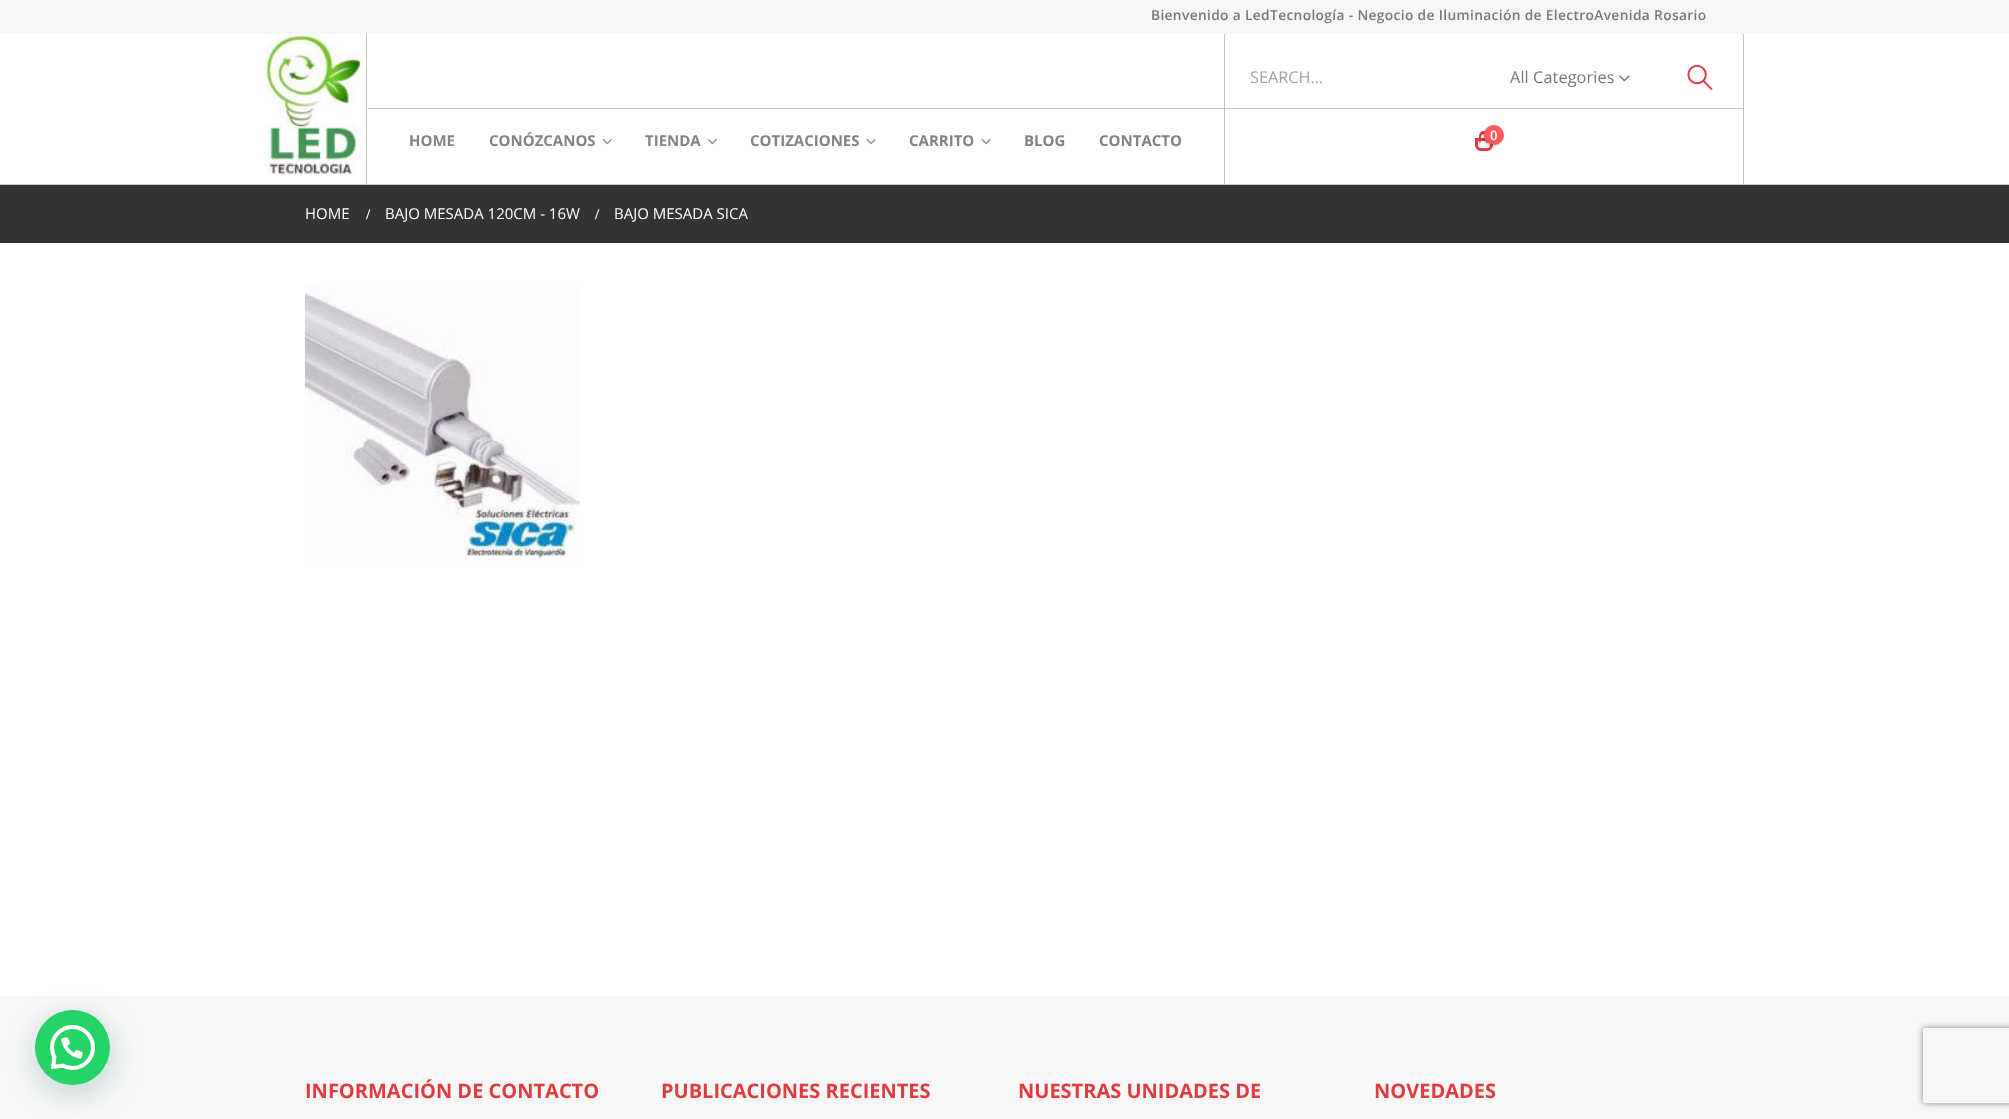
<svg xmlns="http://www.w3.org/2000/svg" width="2009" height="1119">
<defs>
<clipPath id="clip1"><path d="M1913 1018h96v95h-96zm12.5 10h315c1.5 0 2.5 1 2.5 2.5v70c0 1.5-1 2.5-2.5 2.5h-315c-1.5 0-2.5-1-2.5-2.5v-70c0-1.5 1-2.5 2.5-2.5z" clip-rule="evenodd"/></clipPath>
</defs>
<rect width="100%" height="100%" fill="#fff"/>
<rect y="996" width="2009" height="123" fill="#f7f7f7"/>
<rect x="36" y="1018" width="75" height="75" rx="37.5" fill="#075e543d" filter="blur(15px)"/>
<circle cx="72.5" cy="1047.5" r="37.5" fill="#25d366"/>
<image x="50" y="1025" width="45" height="45" href="media/1.png"/>
<rect y="184" width="2009" height="1" fill="#c5c4c2"/>
<rect width="2009" height="34" fill="#f7f7f7"/>
<text x="1151" y="20" style="font-family:Open Sans;font-size:13.75px;font-weight:600;letter-spacing:0.35px;fill:#777">Bienvenido a LedTecnología - Negocio de Iluminación de ElectroAvenida Rosario</text>
<rect x="366" y="34" width="1" height="150" fill="#c5c4c2"/>
<image x="266" y="34" width="95" height="142" href="media/2.png"/>
<rect x="1224" y="34" width="1" height="150" fill="#c5c4c2"/>
<rect x="368" y="108" width="856" height="1" fill="#c5c4c2"/>
<text x="409" y="146" style="font-family:Open Sans;font-size:15px;font-weight:bold;fill:#828385">HOME</text>
<text x="489" y="146" style="font-family:Open Sans;font-size:15px;font-weight:bold;fill:#828385">CONÓZCANOS</text>
<image x="602" y="139" width="10" height="6" href="media/3.png"/>
<text x="645" y="146" style="font-family:Open Sans;font-size:15px;font-weight:bold;fill:#828385">TIENDA</text>
<image x="707" y="139" width="10" height="6" href="media/3.png"/>
<text x="750" y="146" style="font-family:Open Sans;font-size:15px;font-weight:bold;fill:#828385">COTIZACIONES</text>
<image x="866" y="139" width="10" height="6" href="media/4.png"/>
<text x="909" y="146" style="font-family:Open Sans;font-size:15px;font-weight:bold;fill:#828385">CARRITO</text>
<image x="981" y="139" width="10" height="6" href="media/4.png"/>
<text x="1024" y="146" style="font-family:Open Sans;font-size:15px;font-weight:bold;fill:#828385">BLOG</text>
<text x="1099" y="146" style="font-family:Open Sans;font-size:15px;font-weight:bold;fill:#828385">CONTACTO</text>
<rect x="1743" y="34" width="1" height="150" fill="#c5c4c2"/>
<rect x="1225" y="108" width="518" height="1" fill="#c5c4c2"/>
<text x="1250" y="83" style="font-family:Open Sans;font-size:16.25px;fill:#a0a0a0">SEARCH…</text>
<text x="1510" y="83" style="font-family:Open Sans;font-size:16.25px;letter-spacing:0.1px;fill:#777">All Categories</text>
<image x="1619" y="75" width="11" height="7" href="media/5.png"/>
<image x="1687" y="65" width="26" height="25" href="media/6.png"/>
<path d="M1476.5 139.5h15v5.5c0 2.5-2 4.5-4.5 4.5h-6c-2.5 0-4.5-2-4.5-4.5z" fill="none" stroke="#e13b3f" stroke-width="3"/>
<path d="M1484 131c6 0 5 7.5 5 11.5h-10c0-4-1.5-11.5 5-11.5zm0 3c3.5 0 2 6 2 8.5h-5c0-2.5-1-8.5 3-8.5z" fill="#e13b3f" fill-rule="evenodd"/>
<rect x="1483" y="126" width="20" height="20" rx="10" fill="#0000004d" filter="blur(1px)"/>
<circle cx="1494" cy="135" r="10" fill="#ff5b5b"/>
<text x="1490" y="140" style="font-family:Open Sans;font-size:13px;font-weight:600;fill:#fff">0</text>
<rect y="185" width="2009" height="58" fill="#333"/>
<text x="305" y="219" style="font-family:Open Sans;font-size:15px;fill:#fff">HOME</text>
<text x="366" y="219" style="font-family:Liberation Serif;font-size:15px;font-weight:bold;fill:#fff">/</text>
<text x="385" y="219" style="font-family:Open Sans;font-size:15px;fill:#fff">BAJO MESADA 120CM - 16W</text>
<text x="595" y="219" style="font-family:Liberation Serif;font-size:15px;font-weight:bold;fill:#fff">/</text>
<text x="614" y="219" style="font-family:Open Sans;font-size:15px;fill:#fff">BAJO MESADA SICA</text>
<image x="305" y="286" width="275" height="275" href="media/7.png"/>
<text x="305" y="1098" style="font-family:Open Sans;font-size:20px;font-weight:bold;fill:#e13b3f">INFORMACIÓN DE CONTACTO</text>
<text x="661" y="1098" style="font-family:Open Sans;font-size:20px;font-weight:bold;fill:#e13b3f">PUBLICACIONES RECIENTES</text>
<text x="1018" y="1098" style="font-family:Open Sans;font-size:20px;font-weight:bold;fill:#e13b3f">NUESTRAS UNIDADES DE</text>
<text x="1374" y="1098" style="font-family:Open Sans;font-size:20px;font-weight:bold;fill:#e13b3f">NOVEDADES</text>
<g clip-path="url(#clip1)">
<rect x="1923" y="1028" width="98" height="75" rx="2.5" fill="#808080" filter="blur(3px)"/>
</g>
</svg>
